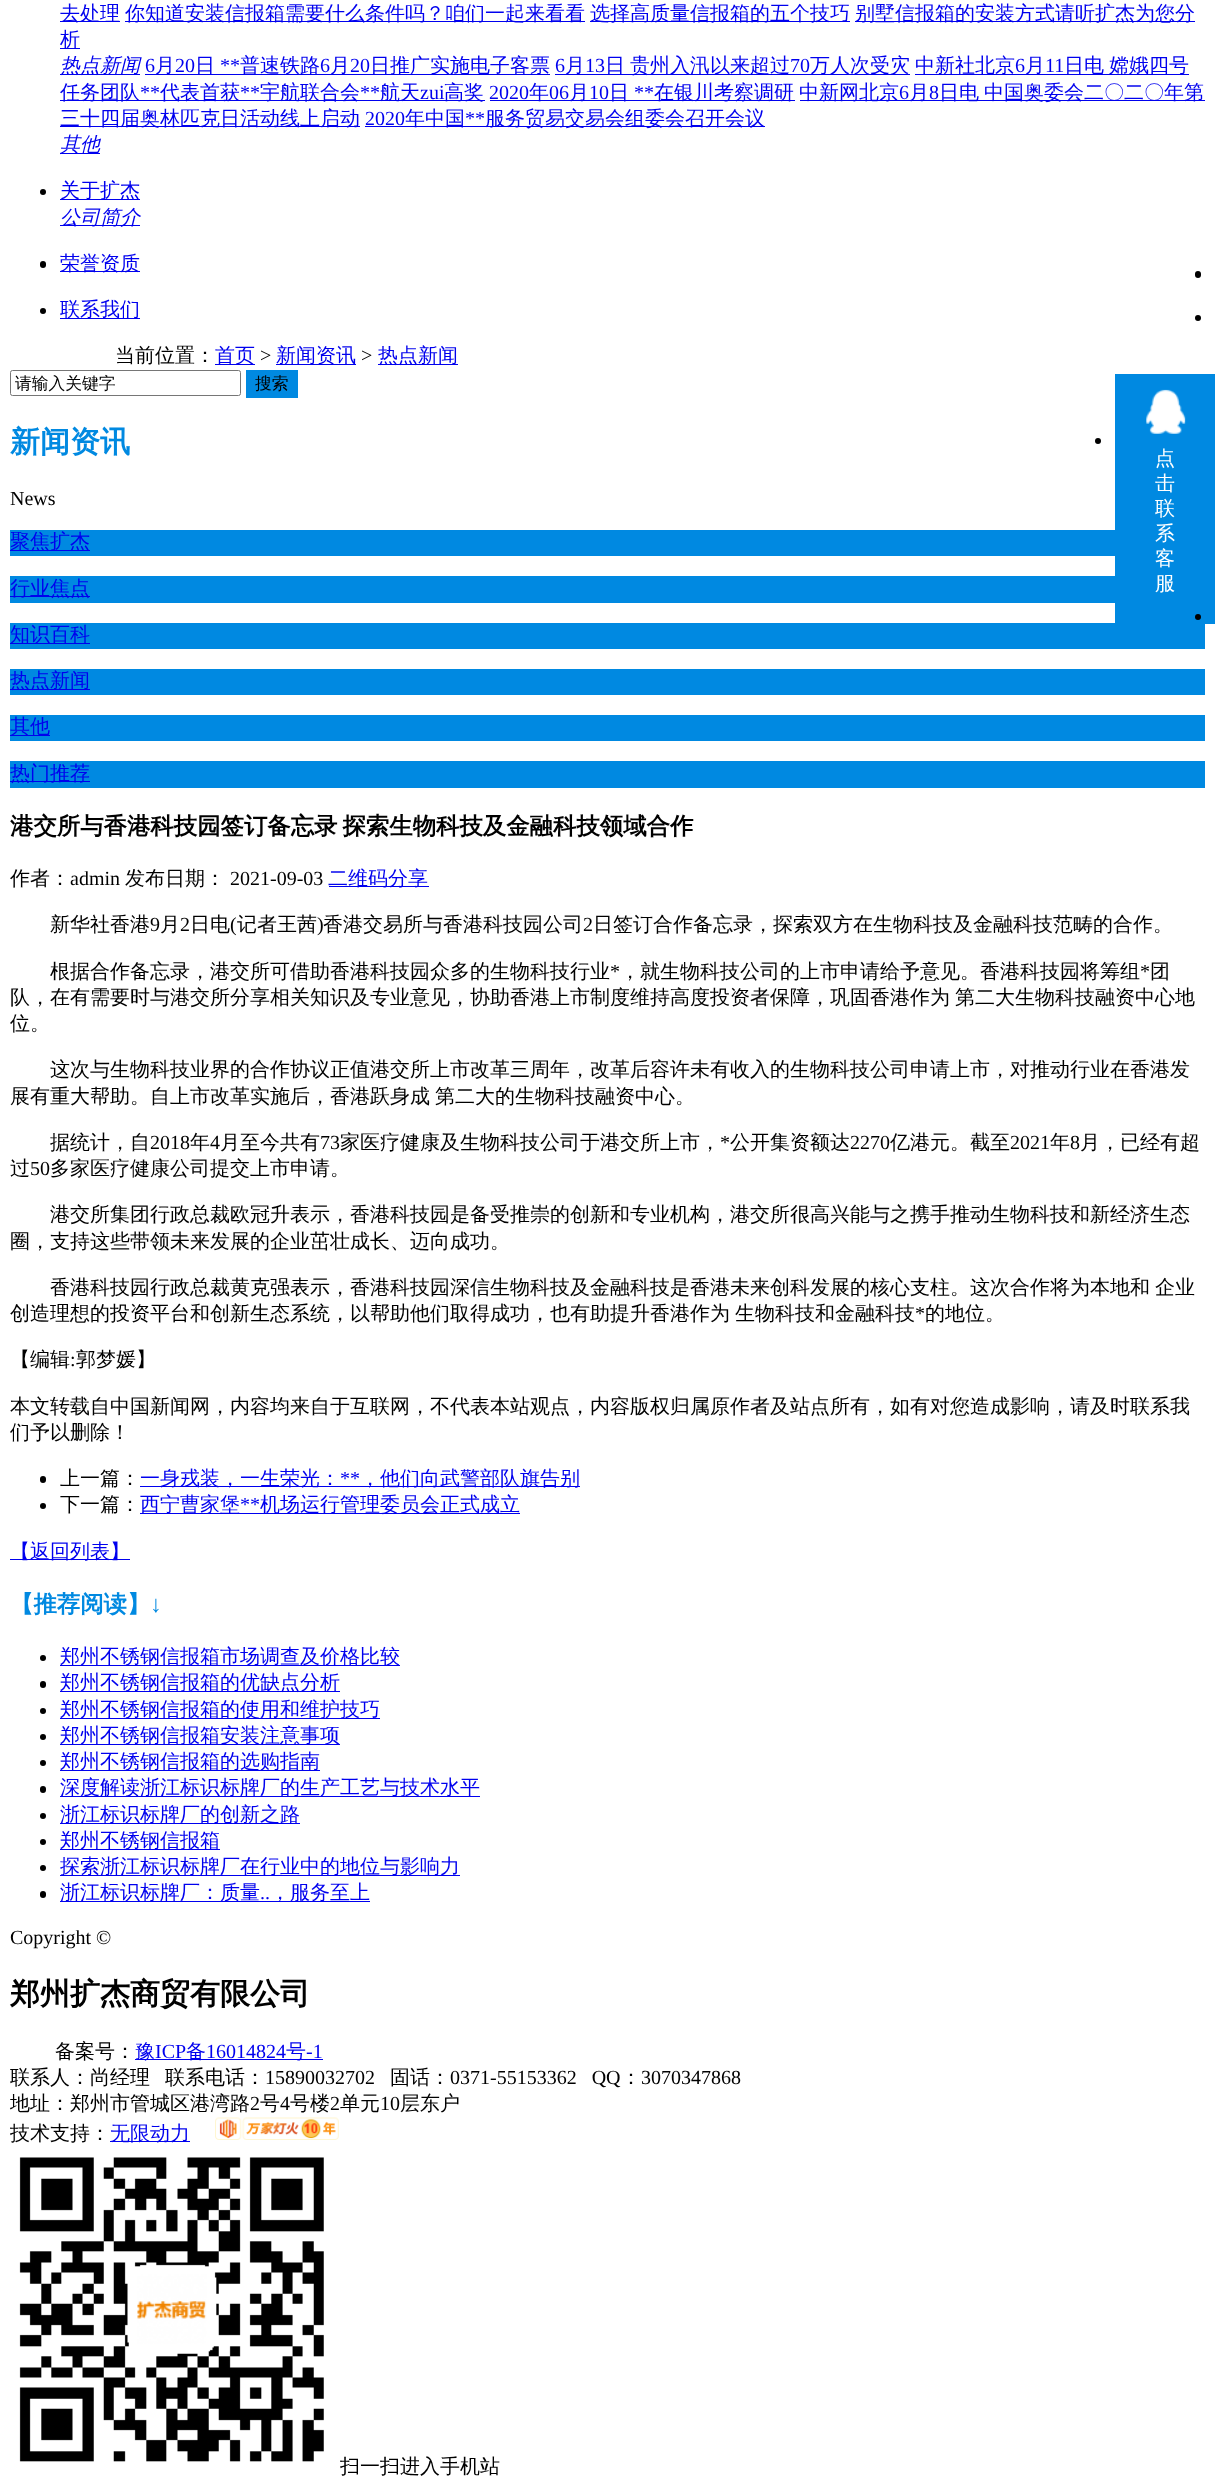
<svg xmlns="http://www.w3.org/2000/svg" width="1215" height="2490">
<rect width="100%" height="100%" fill="#fff"/>
<rect x="60" y="21" width="60" height="1" fill="#00e"/>
<text x="60" y="20" style="font-family:WenQuanYi Zen Hei;font-size:20px;font-weight:500;fill:#00e">去处理</text>
<rect x="125" y="21" width="460" height="1" fill="#00e"/>
<text x="125" y="20" style="font-family:WenQuanYi Zen Hei;font-size:20px;font-weight:500;fill:#00e">你知道安装信报箱需要什么条件吗？咱们一起来看看</text>
<rect x="590" y="21" width="260" height="1" fill="#00e"/>
<text x="590" y="20" style="font-family:WenQuanYi Zen Hei;font-size:20px;font-weight:500;fill:#00e">选择高质量信报箱的五个技巧</text>
<rect x="855" y="21" width="340" height="1" fill="#00e"/>
<text x="855" y="20" style="font-family:WenQuanYi Zen Hei;font-size:20px;font-weight:500;fill:#00e">别墅信报箱的安装方式请听扩杰为您分</text>
<rect x="60" y="48" width="20" height="1" fill="#00e"/>
<text x="60" y="46" style="font-family:WenQuanYi Zen Hei;font-size:20px;font-weight:500;fill:#00e">析</text>
<rect x="60" y="74" width="80" height="1" fill="#00e"/>
<text x="60" y="72" style="font-family:WenQuanYi Zen Hei;font-size:20px;font-weight:500;font-style:italic;fill:#00e">热点新闻</text>
<text x="145" y="72" style="font-family:Liberation Serif;font-size:20px;fill:#00e">6</text>
<rect x="145" y="74" width="405" height="1" fill="#00e"/>
<text x="155" y="72" style="font-family:WenQuanYi Zen Hei;font-size:20px;font-weight:500;fill:#00e">月</text>
<text x="175" y="72" style="font-family:Liberation Serif;font-size:20px;fill:#00e">20</text>
<text x="195" y="72" style="font-family:WenQuanYi Zen Hei;font-size:20px;font-weight:500;fill:#00e">日</text>
<text x="220" y="72" style="font-family:Liberation Serif;font-size:20px;fill:#00e">**</text>
<text x="240" y="72" style="font-family:WenQuanYi Zen Hei;font-size:20px;font-weight:500;fill:#00e">普速铁路</text>
<text x="320" y="72" style="font-family:Liberation Serif;font-size:20px;fill:#00e">6</text>
<text x="330" y="72" style="font-family:WenQuanYi Zen Hei;font-size:20px;font-weight:500;fill:#00e">月</text>
<text x="350" y="72" style="font-family:Liberation Serif;font-size:20px;fill:#00e">20</text>
<text x="370" y="72" style="font-family:WenQuanYi Zen Hei;font-size:20px;font-weight:500;fill:#00e">日推广实施电子客票</text>
<text x="555" y="72" style="font-family:Liberation Serif;font-size:20px;fill:#00e">6</text>
<rect x="555" y="74" width="355" height="1" fill="#00e"/>
<text x="565" y="72" style="font-family:WenQuanYi Zen Hei;font-size:20px;font-weight:500;fill:#00e">月</text>
<text x="585" y="72" style="font-family:Liberation Serif;font-size:20px;fill:#00e">13</text>
<text x="605" y="72" word-spacing="-1" style="font-family:WenQuanYi Zen Hei;font-size:20px;font-weight:500;fill:#00e">日 贵州入汛以来超过</text>
<text x="790" y="72" style="font-family:Liberation Serif;font-size:20px;fill:#00e">70</text>
<text x="810" y="72" style="font-family:WenQuanYi Zen Hei;font-size:20px;font-weight:500;fill:#00e">万人次受灾</text>
<rect x="915" y="74" width="274" height="1" fill="#00e"/>
<text x="915" y="72" style="font-family:WenQuanYi Zen Hei;font-size:20px;font-weight:500;fill:#00e">中新社北京</text>
<text x="1015" y="72" style="font-family:Liberation Serif;font-size:20px;fill:#00e">6</text>
<text x="1025" y="72" style="font-family:WenQuanYi Zen Hei;font-size:20px;font-weight:500;fill:#00e">月</text>
<text x="1045" y="72" style="font-family:Liberation Serif;font-size:20px;fill:#00e">11</text>
<text x="1064" y="72" word-spacing="-1" style="font-family:WenQuanYi Zen Hei;font-size:20px;font-weight:500;fill:#00e">日电 嫦娥四号</text>
<rect x="60" y="100" width="425" height="1" fill="#00e"/>
<text x="60" y="99" style="font-family:WenQuanYi Zen Hei;font-size:20px;font-weight:500;fill:#00e">任务团队</text>
<text x="140" y="99" style="font-family:Liberation Serif;font-size:20px;fill:#00e">**</text>
<text x="160" y="99" style="font-family:WenQuanYi Zen Hei;font-size:20px;font-weight:500;fill:#00e">代表首获</text>
<text x="240" y="99" style="font-family:Liberation Serif;font-size:20px;fill:#00e">**</text>
<text x="260" y="99" style="font-family:WenQuanYi Zen Hei;font-size:20px;font-weight:500;fill:#00e">宇航联合会</text>
<text x="360" y="99" style="font-family:Liberation Serif;font-size:20px;fill:#00e">**</text>
<text x="380" y="99" style="font-family:WenQuanYi Zen Hei;font-size:20px;font-weight:500;fill:#00e">航天</text>
<text x="420" y="99" style="font-family:Liberation Serif;font-size:20px;fill:#00e">zui</text>
<text x="444" y="99" style="font-family:WenQuanYi Zen Hei;font-size:20px;font-weight:500;fill:#00e">高奖</text>
<text x="489" y="99" style="font-family:Liberation Serif;font-size:20px;fill:#00e">2020</text>
<rect x="490" y="100" width="305" height="1" fill="#00e"/>
<text x="529" y="99" style="font-family:WenQuanYi Zen Hei;font-size:20px;font-weight:500;fill:#00e">年</text>
<text x="549" y="99" style="font-family:Liberation Serif;font-size:20px;fill:#00e">06</text>
<text x="569" y="99" style="font-family:WenQuanYi Zen Hei;font-size:20px;font-weight:500;fill:#00e">月</text>
<text x="589" y="99" style="font-family:Liberation Serif;font-size:20px;fill:#00e">10</text>
<text x="609" y="99" style="font-family:WenQuanYi Zen Hei;font-size:20px;font-weight:500;fill:#00e">日</text>
<text x="634" y="99" style="font-family:Liberation Serif;font-size:20px;fill:#00e">**</text>
<text x="654" y="99" style="font-family:WenQuanYi Zen Hei;font-size:20px;font-weight:500;fill:#00e">在银川考察调研</text>
<rect x="800" y="100" width="405" height="1" fill="#00e"/>
<text x="799" y="99" style="font-family:WenQuanYi Zen Hei;font-size:20px;font-weight:500;fill:#00e">中新网北京</text>
<text x="899" y="99" style="font-family:Liberation Serif;font-size:20px;fill:#00e">6</text>
<text x="909" y="99" style="font-family:WenQuanYi Zen Hei;font-size:20px;font-weight:500;fill:#00e">月</text>
<text x="929" y="99" style="font-family:Liberation Serif;font-size:20px;fill:#00e">8</text>
<text x="939" y="99" word-spacing="-1" style="font-family:WenQuanYi Zen Hei;font-size:20px;font-weight:500;fill:#00e">日电 中国奥委会二〇二〇年第</text>
<rect x="60" y="126" width="300" height="1" fill="#00e"/>
<text x="60" y="125" style="font-family:WenQuanYi Zen Hei;font-size:20px;font-weight:500;fill:#00e">三十四届奥林匹克日活动线上启动</text>
<text x="365" y="125" style="font-family:Liberation Serif;font-size:20px;fill:#00e">2020</text>
<rect x="365" y="126" width="400" height="1" fill="#00e"/>
<text x="405" y="125" style="font-family:WenQuanYi Zen Hei;font-size:20px;font-weight:500;fill:#00e">年中国</text>
<text x="465" y="125" style="font-family:Liberation Serif;font-size:20px;fill:#00e">**</text>
<text x="485" y="125" style="font-family:WenQuanYi Zen Hei;font-size:20px;font-weight:500;fill:#00e">服务贸易交易会组委会召开会议</text>
<rect x="60" y="153" width="40" height="1" fill="#00e"/>
<text x="60" y="151" style="font-family:WenQuanYi Zen Hei;font-size:20px;font-weight:500;font-style:italic;fill:#00e">其他</text>
<circle cx="43" cy="192" r="3" fill="#000"/>
<rect x="60" y="199" width="80" height="1" fill="#00e"/>
<text x="60" y="197" style="font-family:WenQuanYi Zen Hei;font-size:20px;font-weight:500;fill:#00e">关于扩杰</text>
<rect x="60" y="225" width="80" height="1" fill="#00e"/>
<text x="60" y="224" style="font-family:WenQuanYi Zen Hei;font-size:20px;font-weight:500;font-style:italic;fill:#00e">公司简介</text>
<rect x="40" y="261" width="6" height="7" rx="3" fill="#000"/>
<rect x="60" y="271" width="80" height="1" fill="#00e"/>
<text x="60" y="270" style="font-family:WenQuanYi Zen Hei;font-size:20px;font-weight:500;fill:#00e">荣誉资质</text>
<circle cx="43" cy="311" r="3" fill="#000"/>
<rect x="60" y="318" width="80" height="1" fill="#00e"/>
<text x="60" y="316" style="font-family:WenQuanYi Zen Hei;font-size:20px;font-weight:500;fill:#00e">联系我们</text>
<text x="115" y="362" style="font-family:WenQuanYi Zen Hei;font-size:20px;font-weight:500;fill:#000">当前位置：</text>
<rect x="215" y="364" width="40" height="1" fill="#00e"/>
<text x="215" y="362" style="font-family:WenQuanYi Zen Hei;font-size:20px;font-weight:500;fill:#00e">首页</text>
<text x="260" y="362" style="font-family:Liberation Serif;font-size:20px;fill:#000">&gt;</text>
<rect x="276" y="364" width="80" height="1" fill="#00e"/>
<text x="276" y="362" style="font-family:WenQuanYi Zen Hei;font-size:20px;font-weight:500;fill:#00e">新闻资讯</text>
<text x="361" y="362" style="font-family:Liberation Serif;font-size:20px;fill:#000">&gt;</text>
<rect x="378" y="364" width="80" height="1" fill="#00e"/>
<text x="378" y="362" style="font-family:WenQuanYi Zen Hei;font-size:20px;font-weight:500;fill:#00e">热点新闻</text>
<rect x="10.5" y="370.5" width="230" height="25" rx="2" fill="none" stroke="#767676"/>
<text x="15" y="389" style="font-family:WenQuanYi Zen Hei;font-size:16.75px;font-weight:500;fill:#000">请输入关键字</text>
<rect x="246" y="370" width="52" height="28" fill="#0089e1"/>
<text x="255" y="389" style="font-family:WenQuanYi Zen Hei;font-size:16.75px;font-weight:500;fill:#000">搜索</text>
<text x="10" y="452" style="font-family:WenQuanYi Zen Hei;font-size:30px;font-weight:bold;fill:#0089e1">新闻资讯</text>
<text x="10" y="505" style="font-family:Liberation Serif;font-size:20px;fill:#000">News</text>
<rect x="10" y="530" width="1105" height="26" fill="#0089e1"/>
<rect x="10" y="550" width="80" height="1" fill="#00e"/>
<text x="10" y="548" style="font-family:WenQuanYi Zen Hei;font-size:20px;font-weight:500;fill:#00e">聚焦扩杰</text>
<rect x="10" y="576" width="1105" height="27" fill="#0089e1"/>
<rect x="10" y="596" width="80" height="1" fill="#00e"/>
<text x="10" y="595" style="font-family:WenQuanYi Zen Hei;font-size:20px;font-weight:500;fill:#00e">行业焦点</text>
<rect x="10" y="623" width="1195" height="26" fill="#0089e1"/>
<rect x="10" y="643" width="80" height="1" fill="#00e"/>
<text x="10" y="641" style="font-family:WenQuanYi Zen Hei;font-size:20px;font-weight:500;fill:#00e">知识百科</text>
<rect x="10" y="669" width="1195" height="26" fill="#0089e1"/>
<rect x="10" y="689" width="80" height="1" fill="#00e"/>
<text x="10" y="687" style="font-family:WenQuanYi Zen Hei;font-size:20px;font-weight:500;fill:#00e">热点新闻</text>
<rect x="10" y="715" width="1195" height="26" fill="#0089e1"/>
<rect x="10" y="735" width="40" height="1" fill="#00e"/>
<text x="10" y="733" style="font-family:WenQuanYi Zen Hei;font-size:20px;font-weight:500;fill:#00e">其他</text>
<rect x="10" y="761" width="1195" height="27" fill="#0089e1"/>
<rect x="10" y="781" width="80" height="1" fill="#00e"/>
<text x="10" y="780" style="font-family:WenQuanYi Zen Hei;font-size:20px;font-weight:500;fill:#00e">热门推荐</text>
<text x="10" y="834" word-spacing="-2" style="font-family:WenQuanYi Zen Hei;font-size:23.4px;font-weight:bold;fill:#000">港交所与香港科技园签订备忘录 探索生物科技及金融科技领域合作</text>
<text x="10" y="885" style="font-family:WenQuanYi Zen Hei;font-size:20px;font-weight:500;fill:#000">作者：</text>
<text x="70" y="885" style="font-family:Liberation Serif;font-size:20px;fill:#000">admin</text>
<text x="125" y="885" style="font-family:WenQuanYi Zen Hei;font-size:20px;font-weight:500;fill:#000">发布日期：</text>
<text x="230" y="885" style="font-family:Liberation Serif;font-size:20px;fill:#000">2021-09-03</text>
<rect x="329" y="886" width="100" height="1" fill="#00e"/>
<text x="328" y="885" style="font-family:WenQuanYi Zen Hei;font-size:20px;font-weight:500;fill:#00e">二维码分享</text>
<text x="50" y="931" style="font-family:WenQuanYi Zen Hei;font-size:20px;font-weight:500;fill:#000">新华社香港</text>
<text x="150" y="931" style="font-family:Liberation Serif;font-size:20px;fill:#000">9</text>
<text x="160" y="931" style="font-family:WenQuanYi Zen Hei;font-size:20px;font-weight:500;fill:#000">月</text>
<text x="180" y="931" style="font-family:Liberation Serif;font-size:20px;fill:#000">2</text>
<text x="190" y="931" style="font-family:WenQuanYi Zen Hei;font-size:20px;font-weight:500;fill:#000">日电</text>
<text x="230" y="931" style="font-family:Liberation Serif;font-size:20px;fill:#000">(</text>
<text x="237" y="931" style="font-family:WenQuanYi Zen Hei;font-size:20px;font-weight:500;fill:#000">记者王茜</text>
<text x="317" y="931" style="font-family:Liberation Serif;font-size:20px;fill:#000">)</text>
<text x="323" y="931" style="font-family:WenQuanYi Zen Hei;font-size:20px;font-weight:500;fill:#000">香港交易所与香港科技园公司</text>
<text x="583" y="931" style="font-family:Liberation Serif;font-size:20px;fill:#000">2</text>
<text x="593" y="931" style="font-family:WenQuanYi Zen Hei;font-size:20px;font-weight:500;fill:#000">日签订合作备忘录，探索双方在生物科技及金融科技范畴的合作。</text>
<text x="50" y="978" style="font-family:WenQuanYi Zen Hei;font-size:20px;font-weight:500;fill:#000">根据合作备忘录，港交所可借助香港科技园众多的生物科技行业</text>
<text x="610" y="978" style="font-family:Liberation Serif;font-size:20px;fill:#000">*</text>
<text x="620" y="978" style="font-family:WenQuanYi Zen Hei;font-size:20px;font-weight:500;fill:#000">，就生物科技公司的上市申请给予意见。香港科技园将筹组</text>
<text x="1140" y="978" style="font-family:Liberation Serif;font-size:20px;fill:#000">*</text>
<text x="1150" y="978" style="font-family:WenQuanYi Zen Hei;font-size:20px;font-weight:500;fill:#000">团</text>
<text x="10" y="1004" word-spacing="-1" style="font-family:WenQuanYi Zen Hei;font-size:20px;font-weight:500;fill:#000">队，在有需要时与港交所分享相关知识及专业意见，协助香港上市制度维持高度投资者保障，巩固香港作为 第二大生物科技融资中心地</text>
<text x="10" y="1030" style="font-family:WenQuanYi Zen Hei;font-size:20px;font-weight:500;fill:#000">位。</text>
<text x="50" y="1076" style="font-family:WenQuanYi Zen Hei;font-size:20px;font-weight:500;fill:#000">这次与生物科技业界的合作协议正值港交所上市改革三周年，改革后容许未有收入的生物科技公司申请上市，对推动行业在香港发</text>
<text x="10" y="1103" word-spacing="-1" style="font-family:WenQuanYi Zen Hei;font-size:20px;font-weight:500;fill:#000">展有重大帮助。自上市改革实施后，香港跃身成 第二大的生物科技融资中心。</text>
<text x="50" y="1149" style="font-family:WenQuanYi Zen Hei;font-size:20px;font-weight:500;fill:#000">据统计，自</text>
<text x="150" y="1149" style="font-family:Liberation Serif;font-size:20px;fill:#000">2018</text>
<text x="190" y="1149" style="font-family:WenQuanYi Zen Hei;font-size:20px;font-weight:500;fill:#000">年</text>
<text x="210" y="1149" style="font-family:Liberation Serif;font-size:20px;fill:#000">4</text>
<text x="220" y="1149" style="font-family:WenQuanYi Zen Hei;font-size:20px;font-weight:500;fill:#000">月至今共有</text>
<text x="320" y="1149" style="font-family:Liberation Serif;font-size:20px;fill:#000">73</text>
<text x="340" y="1149" style="font-family:WenQuanYi Zen Hei;font-size:20px;font-weight:500;fill:#000">家医疗健康及生物科技公司于港交所上市，</text>
<text x="720" y="1149" style="font-family:Liberation Serif;font-size:20px;fill:#000">*</text>
<text x="730" y="1149" style="font-family:WenQuanYi Zen Hei;font-size:20px;font-weight:500;fill:#000">公开集资额达</text>
<text x="850" y="1149" style="font-family:Liberation Serif;font-size:20px;fill:#000">2270</text>
<text x="890" y="1149" style="font-family:WenQuanYi Zen Hei;font-size:20px;font-weight:500;fill:#000">亿港元。截至</text>
<text x="1010" y="1149" style="font-family:Liberation Serif;font-size:20px;fill:#000">2021</text>
<text x="1050" y="1149" style="font-family:WenQuanYi Zen Hei;font-size:20px;font-weight:500;fill:#000">年</text>
<text x="1070" y="1149" style="font-family:Liberation Serif;font-size:20px;fill:#000">8</text>
<text x="1080" y="1149" style="font-family:WenQuanYi Zen Hei;font-size:20px;font-weight:500;fill:#000">月，已经有超</text>
<text x="10" y="1175" style="font-family:WenQuanYi Zen Hei;font-size:20px;font-weight:500;fill:#000">过</text>
<text x="30" y="1175" style="font-family:Liberation Serif;font-size:20px;fill:#000">50</text>
<text x="50" y="1175" style="font-family:WenQuanYi Zen Hei;font-size:20px;font-weight:500;fill:#000">多家医疗健康公司提交上市申请。</text>
<text x="50" y="1221" style="font-family:WenQuanYi Zen Hei;font-size:20px;font-weight:500;fill:#000">港交所集团行政总裁欧冠升表示，香港科技园是备受推崇的创新和专业机构，港交所很高兴能与之携手推动生物科技和新经济生态</text>
<text x="10" y="1248" style="font-family:WenQuanYi Zen Hei;font-size:20px;font-weight:500;fill:#000">圈，支持这些带领未来发展的企业茁壮成长、迈向成功。</text>
<text x="50" y="1294" word-spacing="-1" style="font-family:WenQuanYi Zen Hei;font-size:20px;font-weight:500;fill:#000">香港科技园行政总裁黄克强表示，香港科技园深信生物科技及金融科技是香港未来创科发展的核心支柱。这次合作将为本地和 企业</text>
<text x="10" y="1320" word-spacing="-1" style="font-family:WenQuanYi Zen Hei;font-size:20px;font-weight:500;fill:#000">创造理想的投资平台和创新生态系统，以帮助他们取得成功，也有助提升香港作为 生物科技和金融科技</text>
<text x="915" y="1320" style="font-family:Liberation Serif;font-size:20px;fill:#000">*</text>
<text x="925" y="1320" style="font-family:WenQuanYi Zen Hei;font-size:20px;font-weight:500;fill:#000">的地位。</text>
<text x="10" y="1366" style="font-family:WenQuanYi Zen Hei;font-size:20px;font-weight:500;fill:#000">【编辑</text>
<text x="70" y="1366" style="font-family:Liberation Serif;font-size:20px;fill:#000">:</text>
<text x="76" y="1366" style="font-family:WenQuanYi Zen Hei;font-size:20px;font-weight:500;fill:#000">郭梦媛】</text>
<text x="10" y="1413" style="font-family:WenQuanYi Zen Hei;font-size:20px;font-weight:500;fill:#000">本文转载自中国新闻网，内容均来自于互联网，不代表本站观点，内容版权归属原作者及站点所有，如有对您造成影响，请及时联系我</text>
<text x="10" y="1439" style="font-family:WenQuanYi Zen Hei;font-size:20px;font-weight:500;fill:#000">们予以删除！</text>
<rect x="40" y="1476" width="6" height="7" rx="3" fill="#000"/>
<text x="60" y="1485" style="font-family:WenQuanYi Zen Hei;font-size:20px;font-weight:500;fill:#000">上一篇：</text>
<rect x="140" y="1486" width="440" height="1" fill="#00e"/>
<text x="140" y="1485" style="font-family:WenQuanYi Zen Hei;font-size:20px;font-weight:500;fill:#00e">一身戎装，一生荣光：</text>
<text x="340" y="1485" style="font-family:Liberation Serif;font-size:20px;fill:#00e">**</text>
<text x="360" y="1485" style="font-family:WenQuanYi Zen Hei;font-size:20px;font-weight:500;fill:#00e">，他们向武警部队旗告别</text>
<circle cx="43" cy="1506" r="3" fill="#000"/>
<text x="60" y="1511" style="font-family:WenQuanYi Zen Hei;font-size:20px;font-weight:500;fill:#000">下一篇：</text>
<rect x="140" y="1513" width="380" height="1" fill="#00e"/>
<text x="140" y="1511" style="font-family:WenQuanYi Zen Hei;font-size:20px;font-weight:500;fill:#00e">西宁曹家堡</text>
<text x="240" y="1511" style="font-family:Liberation Serif;font-size:20px;fill:#00e">**</text>
<text x="260" y="1511" style="font-family:WenQuanYi Zen Hei;font-size:20px;font-weight:500;fill:#00e">机场运行管理委员会正式成立</text>
<rect x="10" y="1559" width="120" height="1" fill="#00e"/>
<text x="10" y="1558" style="font-family:WenQuanYi Zen Hei;font-size:20px;font-weight:500;fill:#00e">【返回列表】</text>
<text x="10" y="1612" style="font-family:WenQuanYi Zen Hei;font-size:23.4px;font-weight:bold;fill:#0089e1">【推荐阅读】</text>
<text x="150" y="1612" style="font-family:Liberation Serif;font-size:23.4px;font-weight:bold;fill:#0089e1">↓</text>
<circle cx="43" cy="1658" r="3" fill="#000"/>
<rect x="60" y="1665" width="340" height="1" fill="#00e"/>
<text x="60" y="1663" style="font-family:WenQuanYi Zen Hei;font-size:20px;font-weight:500;fill:#00e">郑州不锈钢信报箱市场调查及价格比较</text>
<rect x="40" y="1681" width="6" height="7" rx="3" fill="#000"/>
<rect x="60" y="1691" width="280" height="1" fill="#00e"/>
<text x="60" y="1689" style="font-family:WenQuanYi Zen Hei;font-size:20px;font-weight:500;fill:#00e">郑州不锈钢信报箱的优缺点分析</text>
<circle cx="43" cy="1711" r="3" fill="#000"/>
<rect x="60" y="1718" width="320" height="1" fill="#00e"/>
<text x="60" y="1716" style="font-family:WenQuanYi Zen Hei;font-size:20px;font-weight:500;fill:#00e">郑州不锈钢信报箱的使用和维护技巧</text>
<circle cx="43" cy="1737" r="3" fill="#000"/>
<rect x="60" y="1744" width="280" height="1" fill="#00e"/>
<text x="60" y="1742" style="font-family:WenQuanYi Zen Hei;font-size:20px;font-weight:500;fill:#00e">郑州不锈钢信报箱安装注意事项</text>
<circle cx="43" cy="1763" r="3" fill="#000"/>
<rect x="60" y="1770" width="260" height="1" fill="#00e"/>
<text x="60" y="1768" style="font-family:WenQuanYi Zen Hei;font-size:20px;font-weight:500;fill:#00e">郑州不锈钢信报箱的选购指南</text>
<rect x="40" y="1786" width="6" height="7" rx="3" fill="#000"/>
<rect x="60" y="1796" width="420" height="1" fill="#00e"/>
<text x="60" y="1794" style="font-family:WenQuanYi Zen Hei;font-size:20px;font-weight:500;fill:#00e">深度解读浙江标识标牌厂的生产工艺与技术水平</text>
<circle cx="43" cy="1816" r="3" fill="#000"/>
<rect x="60" y="1823" width="240" height="1" fill="#00e"/>
<text x="60" y="1821" style="font-family:WenQuanYi Zen Hei;font-size:20px;font-weight:500;fill:#00e">浙江标识标牌厂的创新之路</text>
<circle cx="43" cy="1842" r="3" fill="#000"/>
<rect x="60" y="1849" width="160" height="1" fill="#00e"/>
<text x="60" y="1847" style="font-family:WenQuanYi Zen Hei;font-size:20px;font-weight:500;fill:#00e">郑州不锈钢信报箱</text>
<circle cx="43" cy="1868" r="3" fill="#000"/>
<rect x="60" y="1875" width="400" height="1" fill="#00e"/>
<text x="60" y="1873" style="font-family:WenQuanYi Zen Hei;font-size:20px;font-weight:500;fill:#00e">探索浙江标识标牌厂在行业中的地位与影响力</text>
<rect x="40" y="1891" width="6" height="7" rx="3" fill="#000"/>
<rect x="60" y="1901" width="310" height="1" fill="#00e"/>
<text x="60" y="1899" style="font-family:WenQuanYi Zen Hei;font-size:20px;font-weight:500;fill:#00e">浙江标识标牌厂：质量</text>
<text x="260" y="1899" style="font-family:Liberation Serif;font-size:20px;fill:#00e">..</text>
<text x="270" y="1899" style="font-family:WenQuanYi Zen Hei;font-size:20px;font-weight:500;fill:#00e">，服务至上</text>
<rect x="1115" y="374" width="100" height="250" fill="#0089e1"/>
<image x="1146" y="389" width="40" height="45" href="media/1.png"/>
<circle cx="1098" cy="441" r="3" fill="#000"/>
<text x="1155" y="465" style="font-family:WenQuanYi Zen Hei;font-size:20px;font-weight:500;fill:#fff">点</text>
<text x="1155" y="490" style="font-family:WenQuanYi Zen Hei;font-size:20px;font-weight:500;fill:#fff">击</text>
<text x="1155" y="515" style="font-family:WenQuanYi Zen Hei;font-size:20px;font-weight:500;fill:#fff">联</text>
<text x="1155" y="540" style="font-family:WenQuanYi Zen Hei;font-size:20px;font-weight:500;fill:#fff">系</text>
<text x="1155" y="565" style="font-family:WenQuanYi Zen Hei;font-size:20px;font-weight:500;fill:#fff">客</text>
<text x="1155" y="590" style="font-family:WenQuanYi Zen Hei;font-size:20px;font-weight:500;fill:#fff">服</text>
<rect x="1195" y="271" width="6" height="7" rx="3" fill="#000"/>
<circle cx="1198" cy="318" r="3" fill="#000"/>
<circle cx="1198" cy="617" r="3" fill="#000"/>
<text x="10" y="1944" style="font-family:Liberation Serif;font-size:20px;fill:#000">Copyright ©</text>
<text x="10" y="2004" style="font-family:WenQuanYi Zen Hei;font-size:30px;font-weight:bold;fill:#000">郑州扩杰商贸有限公司</text>
<text x="55" y="2058" style="font-family:WenQuanYi Zen Hei;font-size:20px;font-weight:500;fill:#000">备案号：</text>
<rect x="135" y="2059" width="188" height="1" fill="#00e"/>
<text x="135" y="2058" style="font-family:WenQuanYi Zen Hei;font-size:20px;font-weight:500;fill:#00e">豫</text>
<text x="155" y="2058" style="font-family:Liberation Serif;font-size:20px;fill:#00e">ICP</text>
<text x="186" y="2058" style="font-family:WenQuanYi Zen Hei;font-size:20px;font-weight:500;fill:#00e">备</text>
<text x="206" y="2058" style="font-family:Liberation Serif;font-size:20px;fill:#00e">16014824</text>
<text x="286" y="2058" style="font-family:WenQuanYi Zen Hei;font-size:20px;font-weight:500;fill:#00e">号</text>
<text x="306" y="2058" style="font-family:Liberation Serif;font-size:20px;fill:#00e">-1</text>
<text x="10" y="2084" style="font-family:WenQuanYi Zen Hei;font-size:20px;font-weight:500;fill:#000">联系人：尚经理</text>
<text x="165" y="2084" style="font-family:WenQuanYi Zen Hei;font-size:20px;font-weight:500;fill:#000">联系电话：</text>
<text x="265" y="2084" style="font-family:Liberation Serif;font-size:20px;fill:#000">15890032702</text>
<text x="390" y="2084" style="font-family:WenQuanYi Zen Hei;font-size:20px;font-weight:500;fill:#000">固话：</text>
<text x="450" y="2084" style="font-family:Liberation Serif;font-size:20px;fill:#000" xml:space="preserve">0371-55153362   QQ</text>
<text x="621" y="2084" style="font-family:WenQuanYi Zen Hei;font-size:20px;font-weight:500;fill:#000">：</text>
<text x="641" y="2084" style="font-family:Liberation Serif;font-size:20px;fill:#000">3070347868</text>
<text x="10" y="2110" style="font-family:WenQuanYi Zen Hei;font-size:20px;font-weight:500;fill:#000">地址：郑州市管城区港湾路</text>
<text x="250" y="2110" style="font-family:Liberation Serif;font-size:20px;fill:#000">2</text>
<text x="260" y="2110" style="font-family:WenQuanYi Zen Hei;font-size:20px;font-weight:500;fill:#000">号</text>
<text x="280" y="2110" style="font-family:Liberation Serif;font-size:20px;fill:#000">4</text>
<text x="290" y="2110" style="font-family:WenQuanYi Zen Hei;font-size:20px;font-weight:500;fill:#000">号楼</text>
<text x="330" y="2110" style="font-family:Liberation Serif;font-size:20px;fill:#000">2</text>
<text x="340" y="2110" style="font-family:WenQuanYi Zen Hei;font-size:20px;font-weight:500;fill:#000">单元</text>
<text x="380" y="2110" style="font-family:Liberation Serif;font-size:20px;fill:#000">10</text>
<text x="400" y="2110" style="font-family:WenQuanYi Zen Hei;font-size:20px;font-weight:500;fill:#000">层东户</text>
<text x="10" y="2140" style="font-family:WenQuanYi Zen Hei;font-size:20px;font-weight:500;fill:#000">技术支持：</text>
<rect x="110" y="2141" width="80" height="1" fill="#00e"/>
<text x="110" y="2140" style="font-family:WenQuanYi Zen Hei;font-size:20px;font-weight:500;fill:#00e">无限动力</text>
<image x="215" y="2117" width="124" height="23" href="media/2.png"/>
<image x="19" y="2157" width="305" height="305" href="media/3.png"/>
<text x="340" y="2473" style="font-family:WenQuanYi Zen Hei;font-size:20px;font-weight:500;fill:#000">扫一扫进入手机站</text>
</svg>
